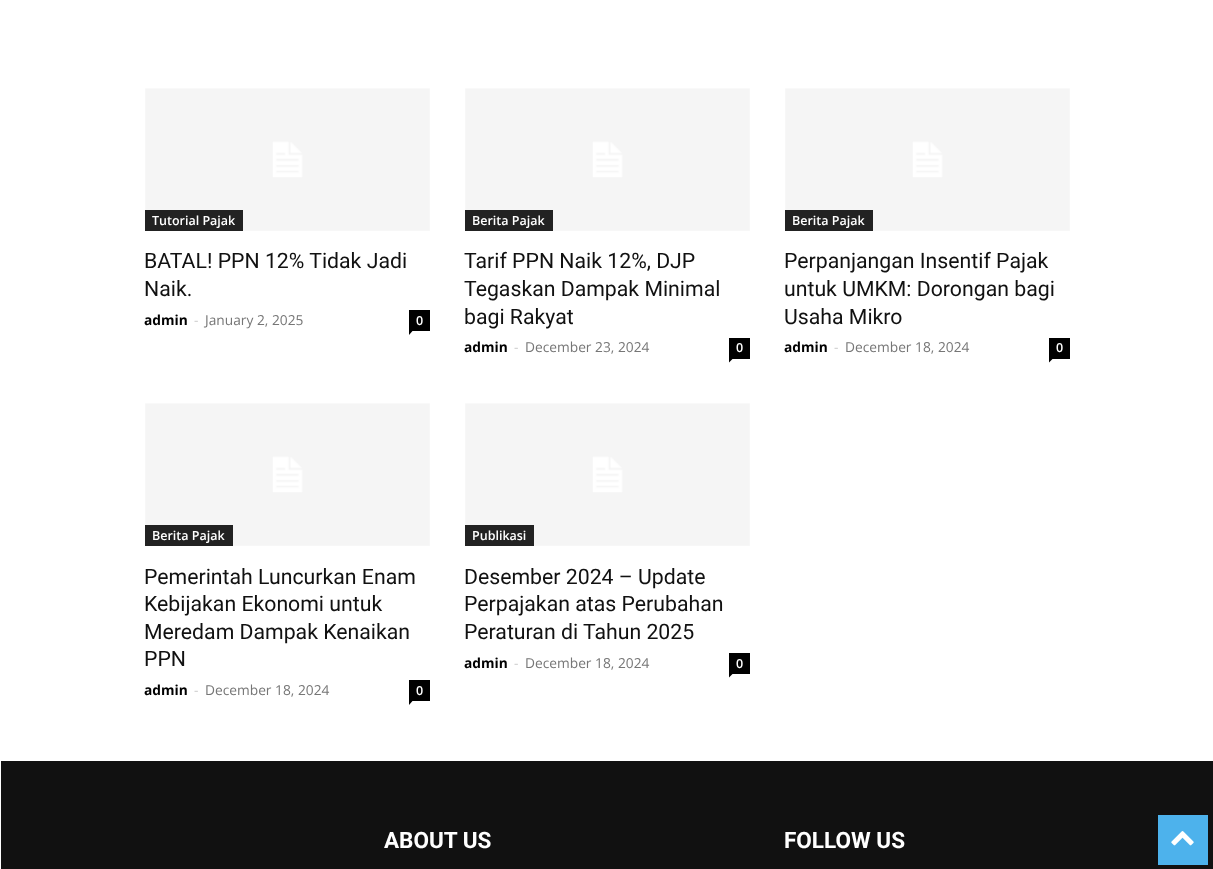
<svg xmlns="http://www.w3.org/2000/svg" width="1213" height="869">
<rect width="100%" height="100%" fill="#fff"/>
<image x="145" y="88" width="285" height="143" href="media/1.png"/>
<rect x="145" y="210" width="98" height="21" fill="#222"/>
<text x="152" y="225" style="font-family:Open Sans;font-size:12.5px;font-weight:600;fill:#fff">Tutorial Pajak</text>
<text x="144" y="268" style="font-family:Roboto;font-size:21.25px;fill:#111">BATAL! PPN 12% Tidak Jadi</text>
<text x="144" y="296" style="font-family:Roboto;font-size:21.25px;fill:#111">Naik.</text>
<text x="144" y="325" style="font-family:Open Sans;font-size:13.75px;font-weight:bold;fill:#000">admin</text>
<text x="194" y="325" style="font-family:Open Sans;font-size:13.75px;fill:#ccc">-</text>
<text x="205" y="325" style="font-family:Open Sans;font-size:13.75px;fill:#767676">January 2, 2025</text>
<rect x="409" y="310" width="21" height="21" fill="#000"/>
<text x="416" y="325" style="font-family:Open Sans;font-size:12.5px;font-weight:600;fill:#fff">0</text>
<path d="M409 331h3.5l-3.5 4z" fill="#000"/>
<image x="465" y="88" width="285" height="143" href="media/1.png"/>
<rect x="465" y="210" width="88" height="21" fill="#222"/>
<text x="472" y="225" style="font-family:Open Sans;font-size:12.5px;font-weight:600;fill:#fff">Berita Pajak</text>
<text x="464" y="268" style="font-family:Roboto;font-size:21.25px;fill:#111">Tarif PPN Naik 12%, DJP</text>
<text x="464" y="296" style="font-family:Roboto;font-size:21.25px;fill:#111">Tegaskan Dampak Minimal</text>
<text x="464" y="324" style="font-family:Roboto;font-size:21.25px;fill:#111">bagi Rakyat</text>
<text x="464" y="352" style="font-family:Open Sans;font-size:13.75px;font-weight:bold;fill:#000">admin</text>
<text x="514" y="352" style="font-family:Open Sans;font-size:13.75px;fill:#ccc">-</text>
<text x="525" y="352" style="font-family:Open Sans;font-size:13.75px;fill:#767676">December 23, 2024</text>
<rect x="729" y="338" width="21" height="21" fill="#000"/>
<text x="736" y="352" style="font-family:Open Sans;font-size:12.5px;font-weight:600;fill:#fff">0</text>
<path d="M729 359h3.5l-3.5 3.5z" fill="#000"/>
<image x="785" y="88" width="285" height="143" href="media/1.png"/>
<rect x="785" y="210" width="88" height="21" fill="#222"/>
<text x="792" y="225" style="font-family:Open Sans;font-size:12.5px;font-weight:600;fill:#fff">Berita Pajak</text>
<text x="784" y="268" style="font-family:Roboto;font-size:21.25px;fill:#111">Perpanjangan Insentif Pajak</text>
<text x="784" y="296" style="font-family:Roboto;font-size:21.25px;fill:#111">untuk UMKM: Dorongan bagi</text>
<text x="784" y="324" style="font-family:Roboto;font-size:21.25px;fill:#111">Usaha Mikro</text>
<text x="784" y="352" style="font-family:Open Sans;font-size:13.75px;font-weight:bold;fill:#000">admin</text>
<text x="834" y="352" style="font-family:Open Sans;font-size:13.75px;fill:#ccc">-</text>
<text x="845" y="352" style="font-family:Open Sans;font-size:13.75px;fill:#767676">December 18, 2024</text>
<rect x="1049" y="338" width="21" height="21" fill="#000"/>
<text x="1056" y="352" style="font-family:Open Sans;font-size:12.5px;font-weight:600;fill:#fff">0</text>
<path d="M1049 359h3.5l-3.5 3.5z" fill="#000"/>
<image x="145" y="403" width="285" height="143" href="media/1.png"/>
<rect x="145" y="525" width="88" height="21" fill="#222"/>
<text x="152" y="540" style="font-family:Open Sans;font-size:12.5px;font-weight:600;fill:#fff">Berita Pajak</text>
<text x="144" y="584" style="font-family:Roboto;font-size:21.25px;fill:#111">Pemerintah Luncurkan Enam</text>
<text x="144" y="611" style="font-family:Roboto;font-size:21.25px;fill:#111">Kebijakan Ekonomi untuk</text>
<text x="144" y="639" style="font-family:Roboto;font-size:21.25px;fill:#111">Meredam Dampak Kenaikan</text>
<text x="144" y="666" style="font-family:Roboto;font-size:21.25px;fill:#111">PPN</text>
<text x="144" y="695" style="font-family:Open Sans;font-size:13.75px;font-weight:bold;fill:#000">admin</text>
<text x="194" y="695" style="font-family:Open Sans;font-size:13.75px;fill:#ccc">-</text>
<text x="205" y="695" style="font-family:Open Sans;font-size:13.75px;fill:#767676">December 18, 2024</text>
<rect x="409" y="680" width="21" height="21" fill="#000"/>
<text x="416" y="695" style="font-family:Open Sans;font-size:12.5px;font-weight:600;fill:#fff">0</text>
<path d="M409 701h3.5l-3.5 4z" fill="#000"/>
<image x="465" y="403" width="285" height="143" href="media/1.png"/>
<rect x="465" y="525" width="69" height="21" fill="#222"/>
<text x="472" y="540" style="font-family:Open Sans;font-size:12.5px;font-weight:600;fill:#fff">Publikasi</text>
<text x="464" y="584" style="font-family:Roboto;font-size:21.25px;fill:#111">Desember 2024 – Update</text>
<text x="464" y="611" style="font-family:Roboto;font-size:21.25px;fill:#111">Perpajakan atas Perubahan</text>
<text x="464" y="639" style="font-family:Roboto;font-size:21.25px;fill:#111">Peraturan di Tahun 2025</text>
<text x="464" y="668" style="font-family:Open Sans;font-size:13.75px;font-weight:bold;fill:#000">admin</text>
<text x="514" y="668" style="font-family:Open Sans;font-size:13.75px;fill:#ccc">-</text>
<text x="525" y="668" style="font-family:Open Sans;font-size:13.75px;fill:#767676">December 18, 2024</text>
<rect x="729" y="653" width="21" height="21" fill="#000"/>
<text x="736" y="668" style="font-family:Open Sans;font-size:12.5px;font-weight:600;fill:#fff">0</text>
<path d="M729 674h3.5l-3.5 3.5z" fill="#000"/>
<rect x="1" y="761" width="1212" height="108" fill="#111"/>
<text x="384" y="848" style="font-family:Roboto;font-size:22.5px;font-weight:bold;fill:#fff">ABOUT US</text>
<text x="784" y="848" style="font-family:Roboto;font-size:22.5px;font-weight:bold;fill:#fff">FOLLOW US</text>
<rect x="1158" y="815" width="50" height="50" fill="#4db2ec"/>
<image x="1171" y="831" width="23" height="15" href="media/2.png"/>
</svg>
